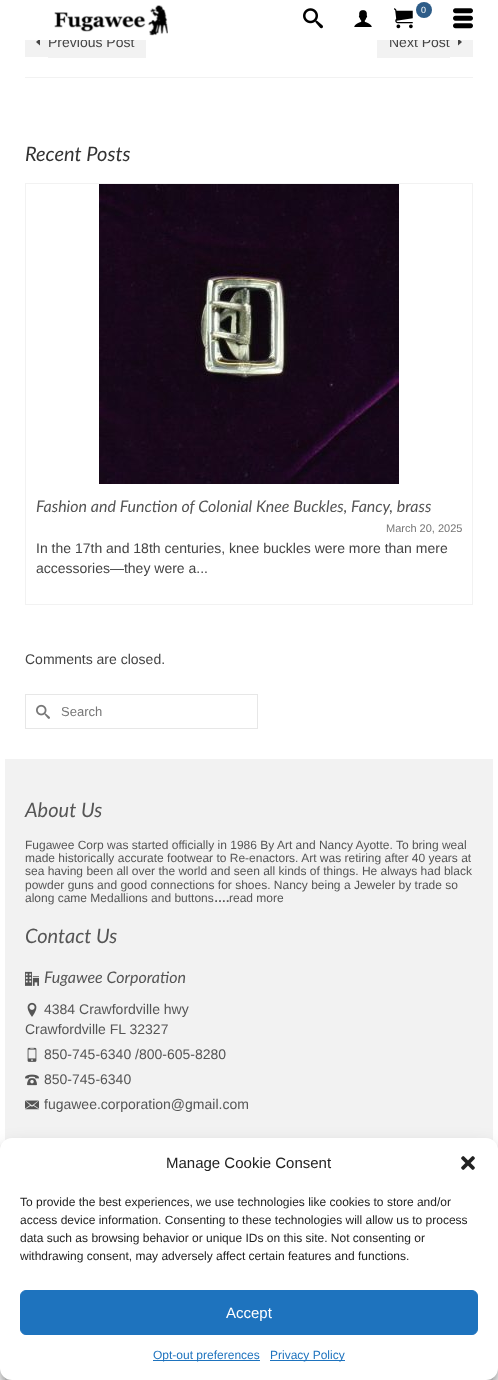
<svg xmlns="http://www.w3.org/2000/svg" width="498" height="1380">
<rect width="100%" height="100%" fill="#fff"/>
<rect x="48" y="40" width="98" height="18" fill="#f2f2f2"/>
<text x="48" y="47" style="font-family:Liberation Sans;font-size:14px;fill:#444">Previous Post</text>
<rect x="25" y="40" width="23" height="17" fill="#f2f2f2"/>
<path d="M40 38.5l-4 3.5l4 3.5z" fill="#444"/>
<rect x="377" y="40" width="73" height="18" fill="#f2f2f2"/>
<text x="389" y="47" style="font-family:Liberation Sans;font-size:14px;fill:#444">Next Post</text>
<rect x="450" y="40" width="23" height="17" fill="#f2f2f2"/>
<path d="M458 45.5l4-3.5l-4-3.5z" fill="#444"/>
<rect x="38" y="36" width="422" height="4" fill="#fff"/>
<image x="54" y="5" width="114" height="31" href="media/1.png"/>
<image x="303" y="8" width="20" height="21" href="media/2.png"/>
<image x="354" y="10" width="18" height="17" href="media/3.png"/>
<image x="394" y="8" width="19" height="21" href="media/4.png"/>
<circle cx="424" cy="10" r="8" fill="#2d5c88"/>
<text x="421" y="13" style="font-family:Liberation Sans;font-size:9px;fill:#fff">0</text>
<image x="453" y="8" width="20" height="21" href="media/5.png"/>
<rect x="25" y="77" width="448" height="1" fill="#f2f2f2"/>
<text x="25" y="161" style="font-family:Lato;font-size:20px;font-style:italic;fill:#333">Recent Posts</text>
<rect x="25.5" y="183.5" width="447" height="421" fill="none" stroke="#f2f2f2"/>
<image x="99" y="184" width="300" height="300" href="media/6.png"/>
<text x="36" y="512" style="font-family:Lato;font-size:16px;font-style:italic;fill:#555">Fashion and Function of Colonial Knee Buckles, Fancy, brass</text>
<text x="386" y="532" style="font-family:Liberation Sans;font-size:11px;fill:#777">March 20, 2025</text>
<text x="36" y="553" style="font-family:Liberation Sans;font-size:14px;fill:#444">In the 17th and 18th centuries, knee buckles were more than mere</text>
<text x="36" y="573" style="font-family:Liberation Sans;font-size:14px;fill:#444">accessories—they were a...</text>
<text x="25" y="664" style="font-family:Liberation Sans;font-size:14px;fill:#444">Comments are closed.</text>
<rect x="25.5" y="694.5" width="232" height="34" fill="none" stroke="#e7e7e7"/>
<image x="36" y="704" width="14" height="15" href="media/7.png"/>
<text x="61" y="716" style="font-family:Liberation Sans;font-size:13px;fill:#777">Search</text>
<rect x="5" y="759" width="488" height="621" fill="#f2f2f2"/>
<text x="25" y="817" style="font-family:Lato;font-size:20px;font-style:italic;fill:#555">About Us</text>
<text x="25" y="849" style="font-family:Liberation Sans;font-size:12px;fill:#555">Fugawee Corp was started officially in 1986 By Art and Nancy Ayotte. To bring weal</text>
<text x="25" y="862" style="font-family:Liberation Sans;font-size:12px;fill:#555">made historically accurate footwear to Re-enactors. Art was retiring after 40 years at</text>
<text x="25" y="875" style="font-family:Liberation Sans;font-size:12px;fill:#555">sea having been all over the world and seen all kinds of things. He always had black</text>
<text x="25" y="889" style="font-family:Liberation Sans;font-size:12px;fill:#555">powder guns and good connections for shoes. Nancy being a Jeweler by trade so</text>
<text x="25" y="902" style="font-family:Liberation Sans;font-size:12px;fill:#555">along came Medallions and buttons</text>
<text x="214" y="902" style="font-family:Liberation Sans;font-size:12px;font-weight:bold;fill:#555">….</text>
<text x="229" y="902" style="font-family:Liberation Sans;font-size:12px;fill:#555">read more</text>
<text x="25" y="943" style="font-family:Lato;font-size:20px;font-style:italic;fill:#555">Contact Us</text>
<image x="25" y="971" width="14" height="15" href="media/8.png"/>
<text x="44" y="983" style="font-family:Lato;font-size:16px;font-style:italic;fill:#555">Fugawee Corporation</text>
<image x="27" y="1002" width="10" height="15" href="media/9.png"/>
<text x="44" y="1014" style="font-family:Liberation Sans;font-size:14px;fill:#555">4384 Crawfordville hwy</text>
<text x="25" y="1034" style="font-family:Liberation Sans;font-size:14px;fill:#555">Crawfordville FL 32327</text>
<image x="27" y="1047" width="10" height="15" href="media/10.png"/>
<text x="44" y="1059" style="font-family:Liberation Sans;font-size:14px;fill:#555">850-745-6340 /800-605-8280</text>
<image x="25" y="1074" width="14" height="12" href="media/11.png"/>
<text x="44" y="1084" style="font-family:Liberation Sans;font-size:14px;fill:#555">850-745-6340</text>
<image x="25" y="1100" width="14" height="10" href="media/12.png"/>
<text x="44" y="1109" style="font-family:Liberation Sans;font-size:14px;fill:#555">fugawee.corporation@gmail.com</text>
<rect y="1144" width="498" height="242" rx="12" fill="#0000003b" filter="blur(3px)"/>
<rect y="1148" width="498" height="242" rx="12" fill="#00000030" filter="blur(10px)"/>
<rect y="1138" width="498" height="242" rx="12" fill="#fff"/>
<text x="166" y="1168" style="font-family:Liberation Sans;font-size:15px;fill:#222">Manage Cookie Consent</text>
<image x="461" y="1156" width="14" height="14" href="media/13.png"/>
<text x="20" y="1206" style="font-family:Liberation Sans;font-size:12px;fill:#222">To provide the best experiences, we use technologies like cookies to store and/or</text>
<text x="20" y="1224" style="font-family:Liberation Sans;font-size:12px;fill:#222">access device information. Consenting to these technologies will allow us to process</text>
<text x="20" y="1242" style="font-family:Liberation Sans;font-size:12px;fill:#222">data such as browsing behavior or unique IDs on this site. Not consenting or</text>
<text x="20" y="1260" style="font-family:Liberation Sans;font-size:12px;fill:#222">withdrawing consent, may adversely affect certain features and functions.</text>
<rect x="20.5" y="1290.5" width="457" height="44" rx="5.5" fill="#1e73be" stroke="#1e73be"/>
<text x="226" y="1318" style="font-family:Liberation Sans;font-size:15px;fill:#fff">Accept</text>
<rect x="153" y="1360" width="107" height="1" fill="#1e73be"/>
<text x="153" y="1359" style="font-family:Liberation Sans;font-size:12px;fill:#1e73be">Opt-out preferences</text>
<rect x="270" y="1360" width="75" height="1" fill="#1e73be"/>
<text x="270" y="1359" style="font-family:Liberation Sans;font-size:12px;fill:#1e73be">Privacy Policy</text>
</svg>
